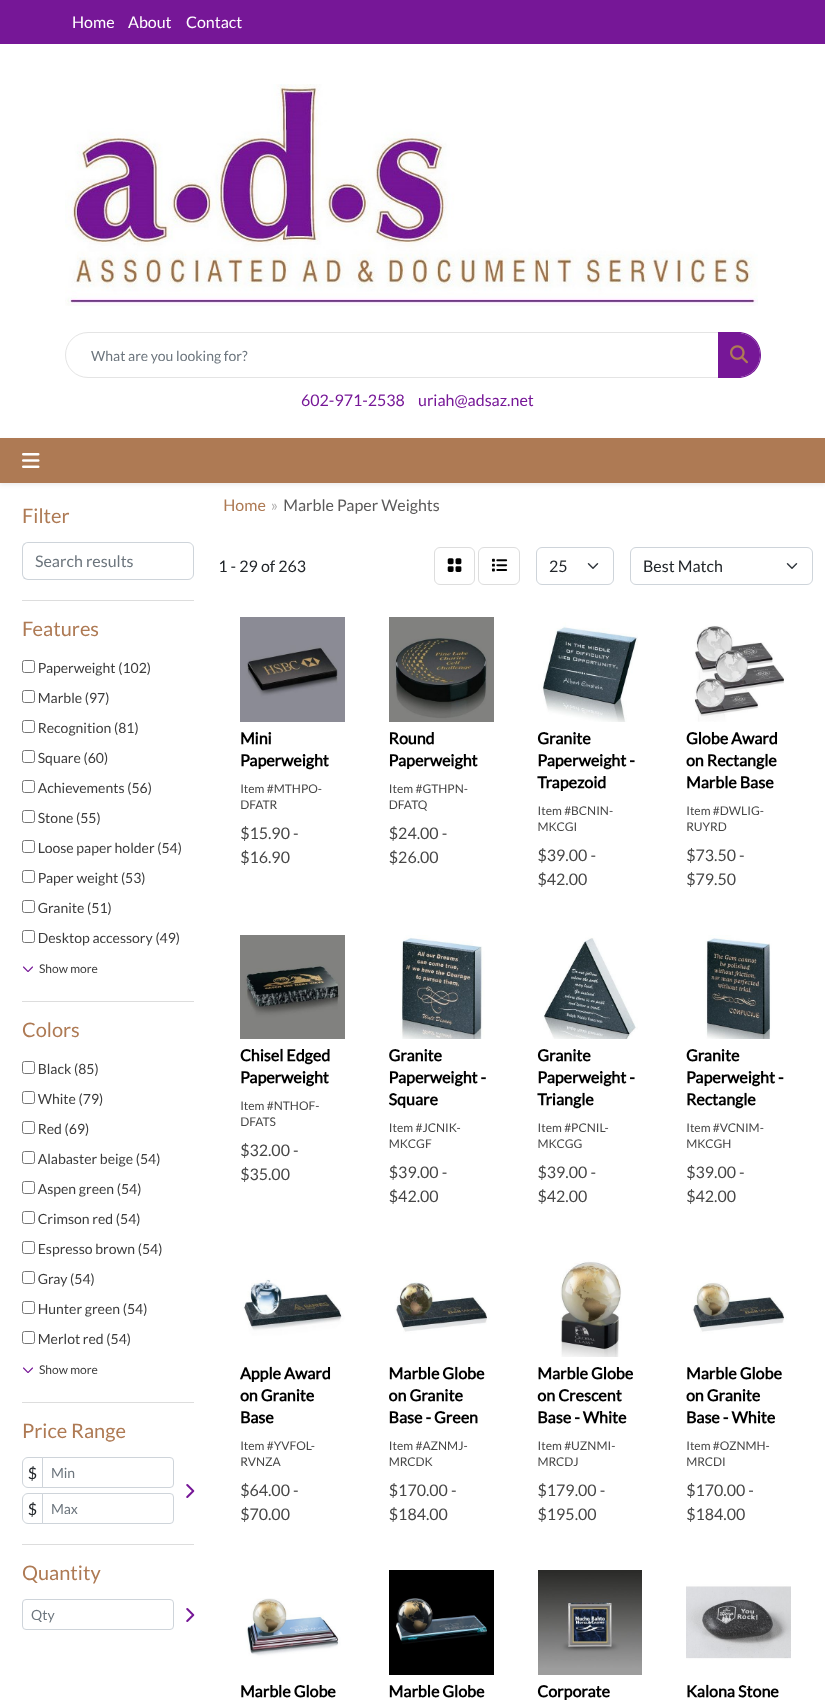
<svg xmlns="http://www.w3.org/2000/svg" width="825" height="1702">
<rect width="100%" height="100%" fill="#fff"/>
<rect width="825" height="44" fill="#761797"/>
<text x="72" y="28" style="font-family:Lato;font-size:16px;fill:#fff">Home</text>
<text x="128" y="28" style="font-family:Lato;font-size:16px;fill:#fff">About</text>
<text x="186" y="28" style="font-family:Lato;font-size:16px;fill:#fff">Contact</text>
<image x="65" y="84" width="693" height="222" href="media/1.png"/>
<path d="M88 332.5h630.5v45h-630.5c-12.5 0-22.5-10-22.5-22.5c0-12.5 10-22.5 22.5-22.5z" fill="none" stroke="#e4e4e4"/>
<text x="91" y="361" style="font-family:Lato;font-size:14px;fill:#6c757d">What are you looking for?</text>
<path d="M718 333h20c12 0 22 10 22 22c0 12-10 22-22 22h-20z" fill="#761797"/>
<path d="M718 332h20c13 0 23 10 23 23c0 13-10 23-23 23h-20zm0 1h20c12 0 22 10 22 22c0 12-10 22-22 22h-20z" fill="#761797" fill-rule="evenodd"/>
<image x="730" y="345" width="18" height="19" href="media/2.png"/>
<text x="301" y="406" style="font-family:Lato;font-size:16px;fill:#761797">602-971-2538</text>
<text x="418" y="406" style="font-family:Lato;font-size:16px;fill:#761797">uriah@adsaz.net</text>
<rect y="440" width="825" height="45" fill="#00000012" filter="blur(2px)"/>
<rect y="438" width="825" height="45" fill="#ae7a54"/>
<image x="22" y="453" width="18" height="15" href="media/3.png"/>
<image x="22" y="499" width="791" height="1201" href="media/4.png"/>
</svg>
